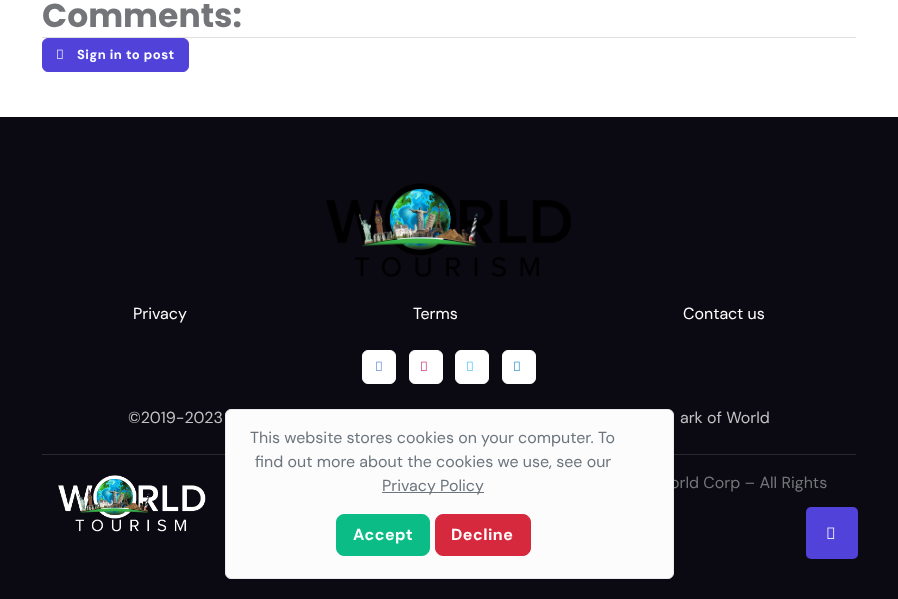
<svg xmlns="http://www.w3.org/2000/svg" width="898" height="599">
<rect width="100%" height="100%" fill="#fff"/>
<rect x="42" y="37" width="814" height="1" fill="#dfdfe3"/>
<text x="42" y="27" style="font-family:Poppins;font-size:33px;font-weight:bold;fill:#747579">Comments:</text>
<rect x="42.5" y="38.5" width="146" height="33" rx="5.5" fill="#5143d9" stroke="#5143d9"/>
<image x="57" y="49" width="6" height="10" href="media/1.png"/>
<text x="77" y="59" style="font-family:DM Sans;font-size:13px;font-weight:bold;letter-spacing:0.5px;fill:#fff">Sign in to post</text>
<rect y="117" width="898" height="482" fill="#0b0a12"/>
<image x="326" y="183" width="245" height="94" href="media/2.png"/>
<text x="133" y="319" style="font-family:DM Sans;font-size:16px;fill:#fff">Privacy</text>
<text x="413" y="319" style="font-family:DM Sans;font-size:16px;fill:#fff">Terms</text>
<text x="683" y="319" style="font-family:DM Sans;font-size:16px;fill:#fff">Contact us</text>
<rect x="362.5" y="350.5" width="33" height="33" rx="5.5" fill="#fff" stroke="#fff"/>
<image x="376" y="361" width="6" height="10" href="media/3.png"/>
<rect x="409.5" y="350.5" width="33" height="33" rx="5.5" fill="#fff" stroke="#fff"/>
<image x="421" y="361" width="6" height="10" href="media/4.png"/>
<rect x="455.5" y="350.5" width="33" height="33" rx="5.5" fill="#fff" stroke="#fff"/>
<image x="467" y="361" width="6" height="10" href="media/5.png"/>
<rect x="502.5" y="350.5" width="33" height="33" rx="5.5" fill="#fff" stroke="#fff"/>
<image x="514" y="361" width="6" height="10" href="media/6.png"/>
<text x="128" y="423" style="font-family:DM Sans;font-size:16px;fill:#c2c2c4">©2019-2023</text>
<text x="680" y="423" style="font-family:DM Sans;font-size:16px;fill:#c2c2c4">ark of World</text>
<rect x="42" y="454" width="814" height="1" fill="#2a2930"/>
<image x="58" y="475" width="148" height="57" href="media/7.png"/>
<text x="670" y="488" style="font-family:DM Sans;font-size:16px;fill:#747579">orld Corp – All Rights</text>
<rect x="225.5" y="409.5" width="448" height="169" rx="5.5" fill="#fcfcfd" stroke="#e9ecef"/>
<text x="250" y="443" style="font-family:DM Sans;font-size:16px;fill:#6c757d">This website stores cookies on your computer. To</text>
<text x="255" y="467" style="font-family:DM Sans;font-size:16px;fill:#6c757d">find out more about the cookies we use, see our</text>
<rect x="382" y="492" width="102" height="1" fill="#6c757d"/>
<text x="382" y="491" style="font-family:DM Sans;font-size:16px;fill:#6c757d">Privacy Policy</text>
<rect x="336.5" y="514.5" width="93" height="41" rx="7.5" fill="#0cbc87" stroke="#0cbc87"/>
<text x="353" y="540" style="font-family:DM Sans;font-size:16px;font-weight:bold;letter-spacing:0.5px;fill:#fff">Accept</text>
<rect x="435.5" y="514.5" width="95" height="41" rx="7.5" fill="#d6293e" stroke="#d6293e"/>
<text x="451" y="540" style="font-family:DM Sans;font-size:16px;font-weight:bold;letter-spacing:0.5px;fill:#fff">Decline</text>
<rect x="806" y="507" width="52" height="52" rx="5" fill="#5143d9"/>
<image x="827" y="527" width="8" height="12" href="media/8.png"/>
</svg>
